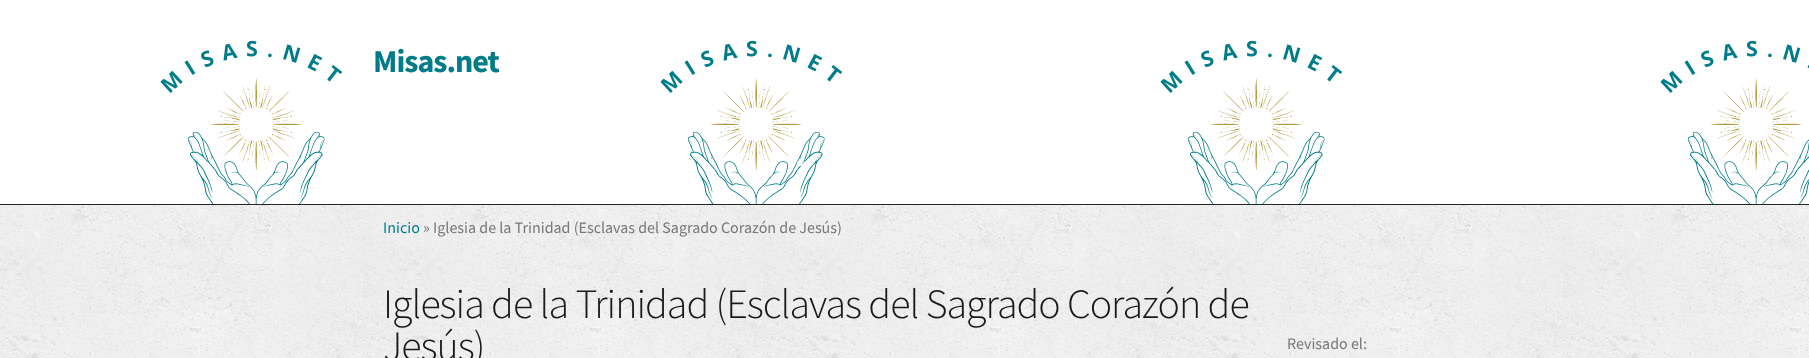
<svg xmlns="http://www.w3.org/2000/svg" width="1809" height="358">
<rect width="100%" height="100%" fill="#fff"/>
<image x="0" y="205" width="1809" height="153" href="media/1.png"/>
<image x="0" y="0" width="1809" height="204" href="media/2.png"/>
<rect y="204" width="1809" height="1" fill="#242424"/>
<text x="373" y="72" style="font-family:Source Sans Pro;font-size:32px;font-weight:bold;letter-spacing:-1px;fill:#007c89">Misas.net</text>
<image x="797" y="160" width="9" height="7" href="media/3.png"/>
<text x="383" y="233" style="font-family:Source Sans Pro;font-size:16px;fill:#007c89">Inicio</text>
<text x="423" y="233" style="font-family:Source Sans Pro;font-size:16px;fill:#777">» Iglesia de la Trinidad (Esclavas del Sagrado Corazón de Jesús)</text>
<text x="383" y="318" style="font-family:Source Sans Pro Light;font-size:41.9px;font-weight:300;letter-spacing:-1px;fill:#191919">Iglesia de la Trinidad (Esclavas del Sagrado Corazón de</text>
<text x="383" y="360" style="font-family:Source Sans Pro Light;font-size:41.9px;font-weight:300;letter-spacing:-1px;fill:#191919">Jesús)</text>
<text x="1287" y="349" style="font-family:Source Sans Pro;font-size:16px;fill:#777">Revisado el:</text>
</svg>
